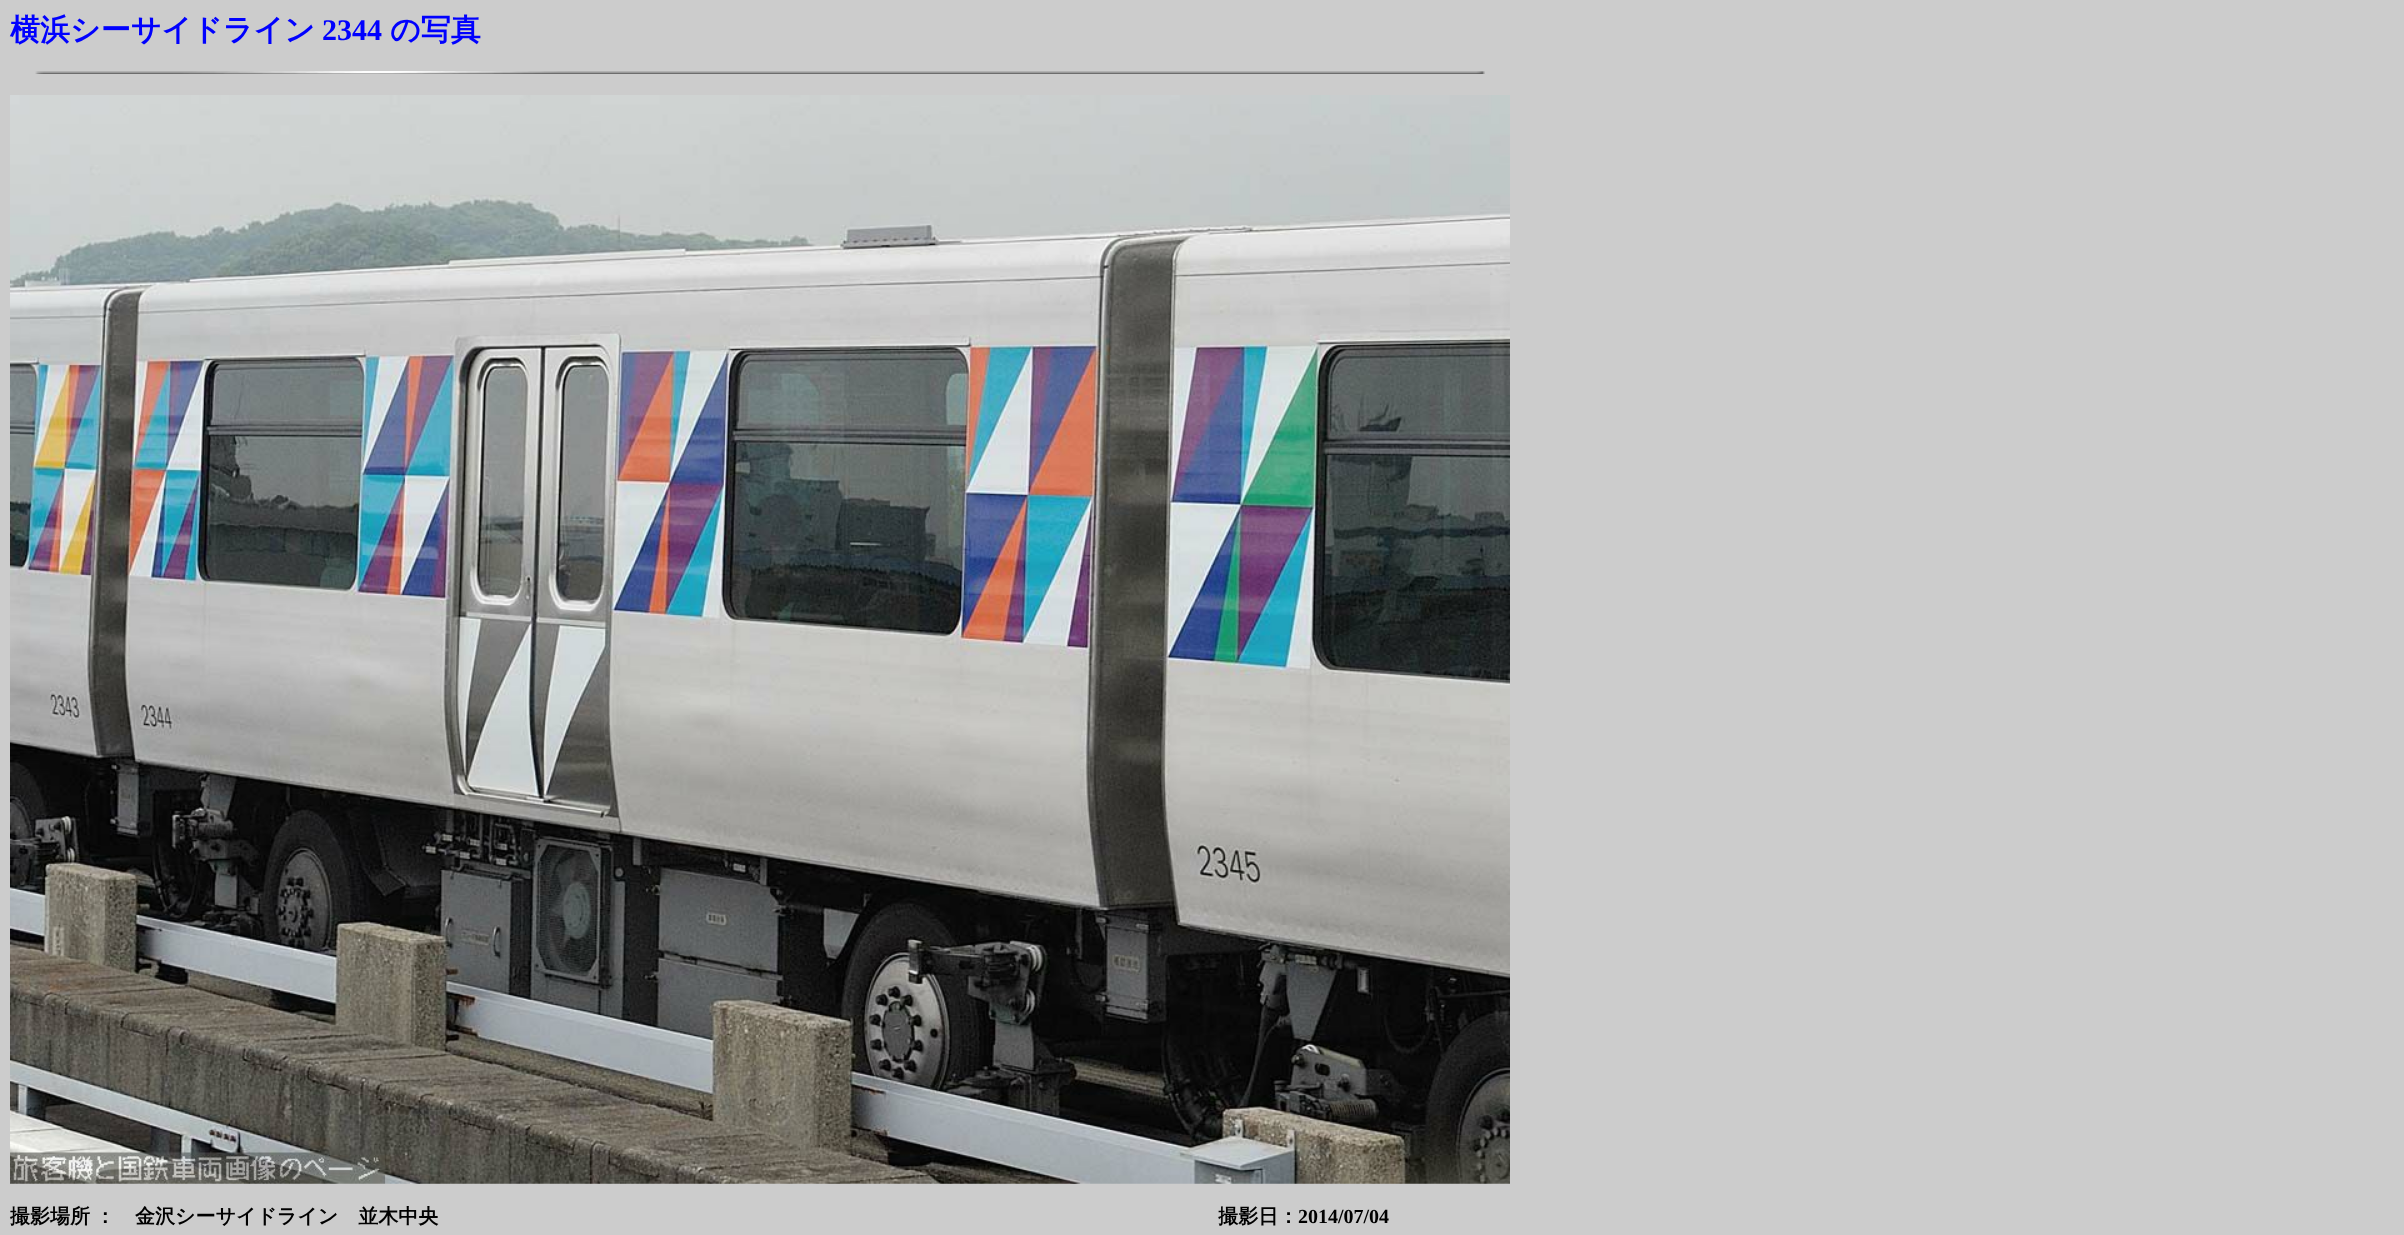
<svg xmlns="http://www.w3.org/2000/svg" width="2404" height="1235">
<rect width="100%" height="100%" fill="#ccc"/>
<text x="10" y="40" style="font-family:WenQuanYi Zen Hei;font-size:30px;font-weight:bold;fill:#00f">横浜シーサイドライン</text>
<text x="322" y="40" style="font-family:Liberation Serif;font-size:30px;font-weight:bold;fill:#00f">2344</text>
<text x="390" y="40" style="font-family:WenQuanYi Zen Hei;font-size:30px;font-weight:bold;fill:#00f">の写真</text>
<image x="35" y="71" width="1450" height="3" href="media/1.png"/>
<image x="10" y="95" width="1500" height="1089" href="media/2.png"/>
<text x="10" y="1223" word-spacing="-1" style="font-family:WenQuanYi Zen Hei;font-size:20px;font-weight:bold;fill:#000">撮影場所 ：　金沢シーサイドライン　並木中央　　　　　　　　　　　　　　　　　　　　　　　　　　　　　　　　　　　　　　　撮影日：</text>
<text x="1298" y="1223" style="font-family:Liberation Serif;font-size:20px;font-weight:bold;fill:#000">2014/07/04</text>
</svg>
